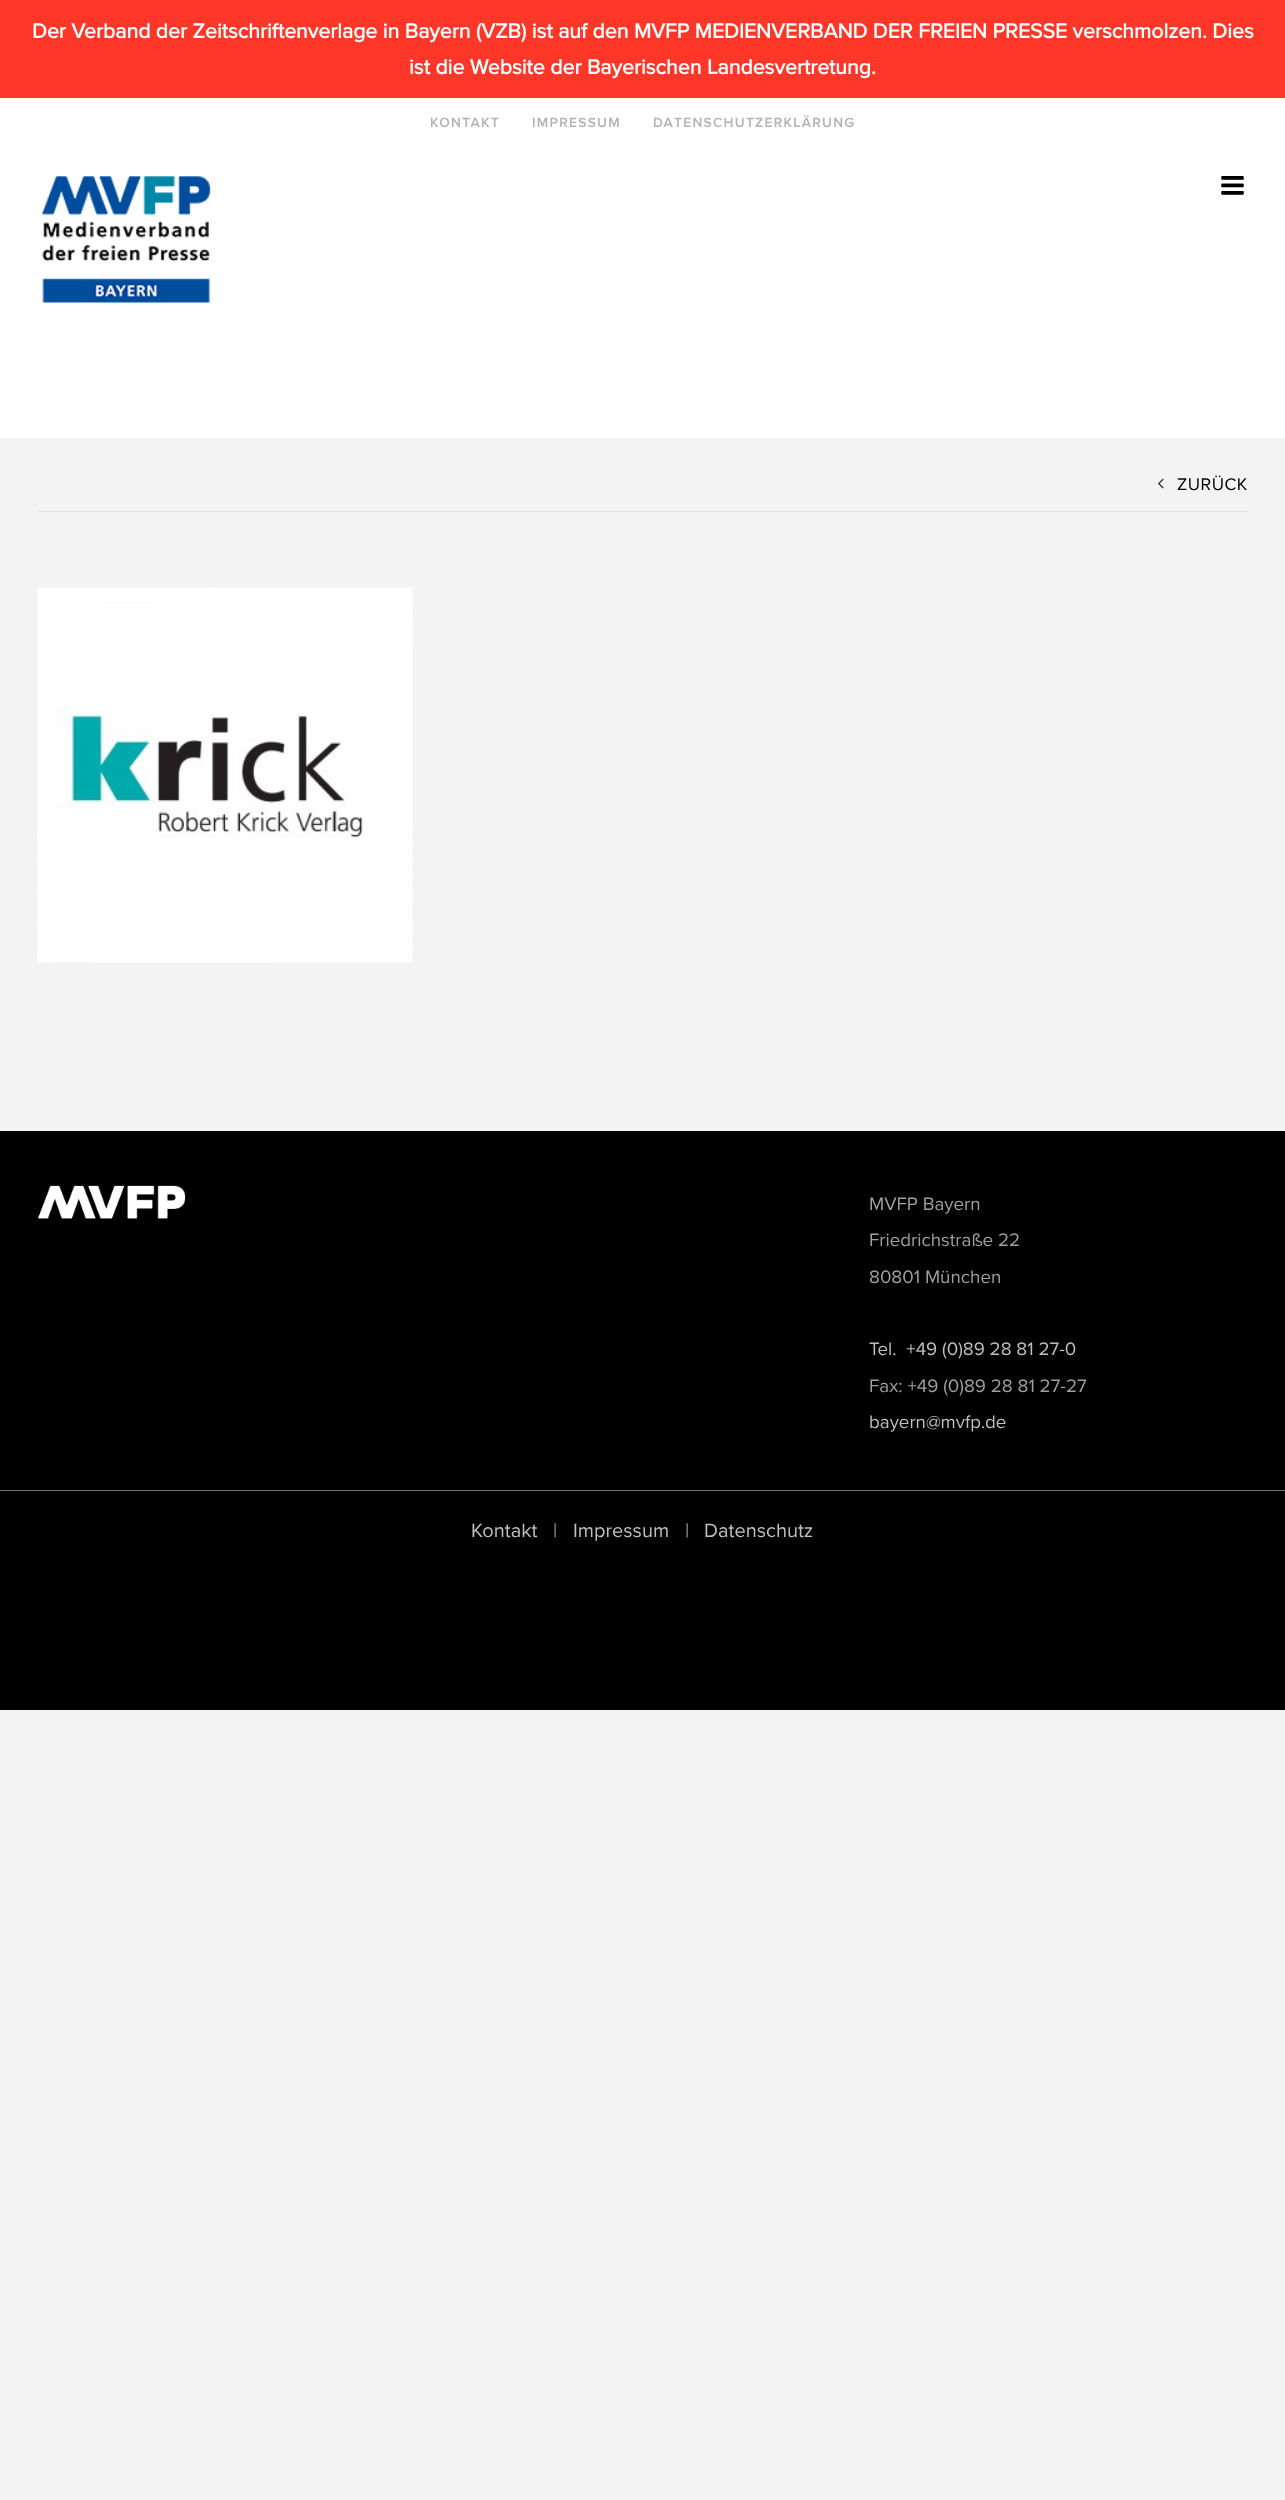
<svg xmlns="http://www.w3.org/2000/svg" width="1285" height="2500">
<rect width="100%" height="100%" fill="#f3f3f3"/>
<rect width="1285" height="98" fill="#ff3728"/>
<text x="32" y="38" style="font-family:'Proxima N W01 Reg';font-size:21.25px;font-weight:bold;fill:#fff">Der Verband der Zeitschriftenverlage in Bayern (VZB) ist auf den MVFP MEDIENVERBAND DER FREIEN PRESSE verschmolzen. Dies</text>
<text x="409" y="74" style="font-family:'Proxima N W01 Reg';font-size:21.25px;font-weight:bold;fill:#fff">ist die Website der Bayerischen Landesvertretung.</text>
<rect y="98" width="1285" height="340" fill="#fff"/>
<text x="430" y="127" style="font-family:'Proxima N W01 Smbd';font-size:13.75px;font-weight:600;letter-spacing:1.25px;fill:#b3b3b3">KONTAKT</text>
<text x="532" y="127" style="font-family:'Proxima N W01 Smbd';font-size:13.75px;font-weight:600;letter-spacing:1.25px;fill:#b3b3b3">IMPRESSUM</text>
<text x="653" y="127" style="font-family:'Proxima N W01 Smbd';font-size:13.75px;font-weight:600;letter-spacing:1.25px;fill:#b3b3b3">DATENSCHUTZERKLÄRUNG</text>
<image x="42" y="176" width="169" height="127" href="media/1.png"/>
<image x="1221" y="176" width="23" height="19" href="media/2.png"/>
<rect x="38" y="511" width="1210" height="1" fill="#e0dede"/>
<image x="1158" y="478" width="6" height="11" href="media/3.png"/>
<text x="1177" y="490" style="font-family:'Proxima N W01 Reg';font-size:17.5px;letter-spacing:0.5px;fill:#000">ZURÜCK</text>
<image x="37" y="587" width="376" height="376" href="media/4.png"/>
<rect y="1131" width="1285" height="359" fill="#000"/>
<image x="38" y="1185" width="148" height="34" href="media/5.png"/>
<text x="869" y="1210" style="font-family:'Proxima N W01 Reg';font-size:18.75px;fill:#9f9f9f">MVFP Bayern</text>
<text x="869" y="1246" style="font-family:'Proxima N W01 Reg';font-size:18.75px;fill:#9f9f9f">Friedrichstraße 22</text>
<text x="869" y="1283" style="font-family:'Proxima N W01 Reg';font-size:18.75px;fill:#9f9f9f">80801 München</text>
<text x="869" y="1355" style="font-family:'Proxima N W01 Reg';font-size:18.75px;fill:#bfbfbf" xml:space="preserve">Tel.  +49 (0)89 28 81 27-0</text>
<text x="869" y="1392" style="font-family:'Proxima N W01 Reg';font-size:18.75px;fill:#9f9f9f">Fax: +49 (0)89 28 81 27-27</text>
<text x="869" y="1428" style="font-family:'Proxima N W01 Reg';font-size:18.75px;fill:#bfbfbf">bayern@mvfp.de</text>
<rect y="1491" width="1285" height="219" fill="#000"/>
<rect y="1490" width="1285" height="1" fill="#6f6f6f"/>
<text x="471" y="1537" style="font-family:'Proxima N W01 Reg';font-size:20px;fill:#bfbfbf">Kontakt</text>
<text x="553" y="1537" style="font-family:'Proxima N W01 Reg';font-size:20px;fill:#9f9f9f">|</text>
<text x="573" y="1537" style="font-family:'Proxima N W01 Reg';font-size:20px;fill:#bfbfbf">Impressum</text>
<text x="685" y="1537" style="font-family:'Proxima N W01 Reg';font-size:20px;fill:#9f9f9f">|</text>
<text x="704" y="1537" style="font-family:'Proxima N W01 Reg';font-size:20px;fill:#bfbfbf">Datenschutz</text>
</svg>
